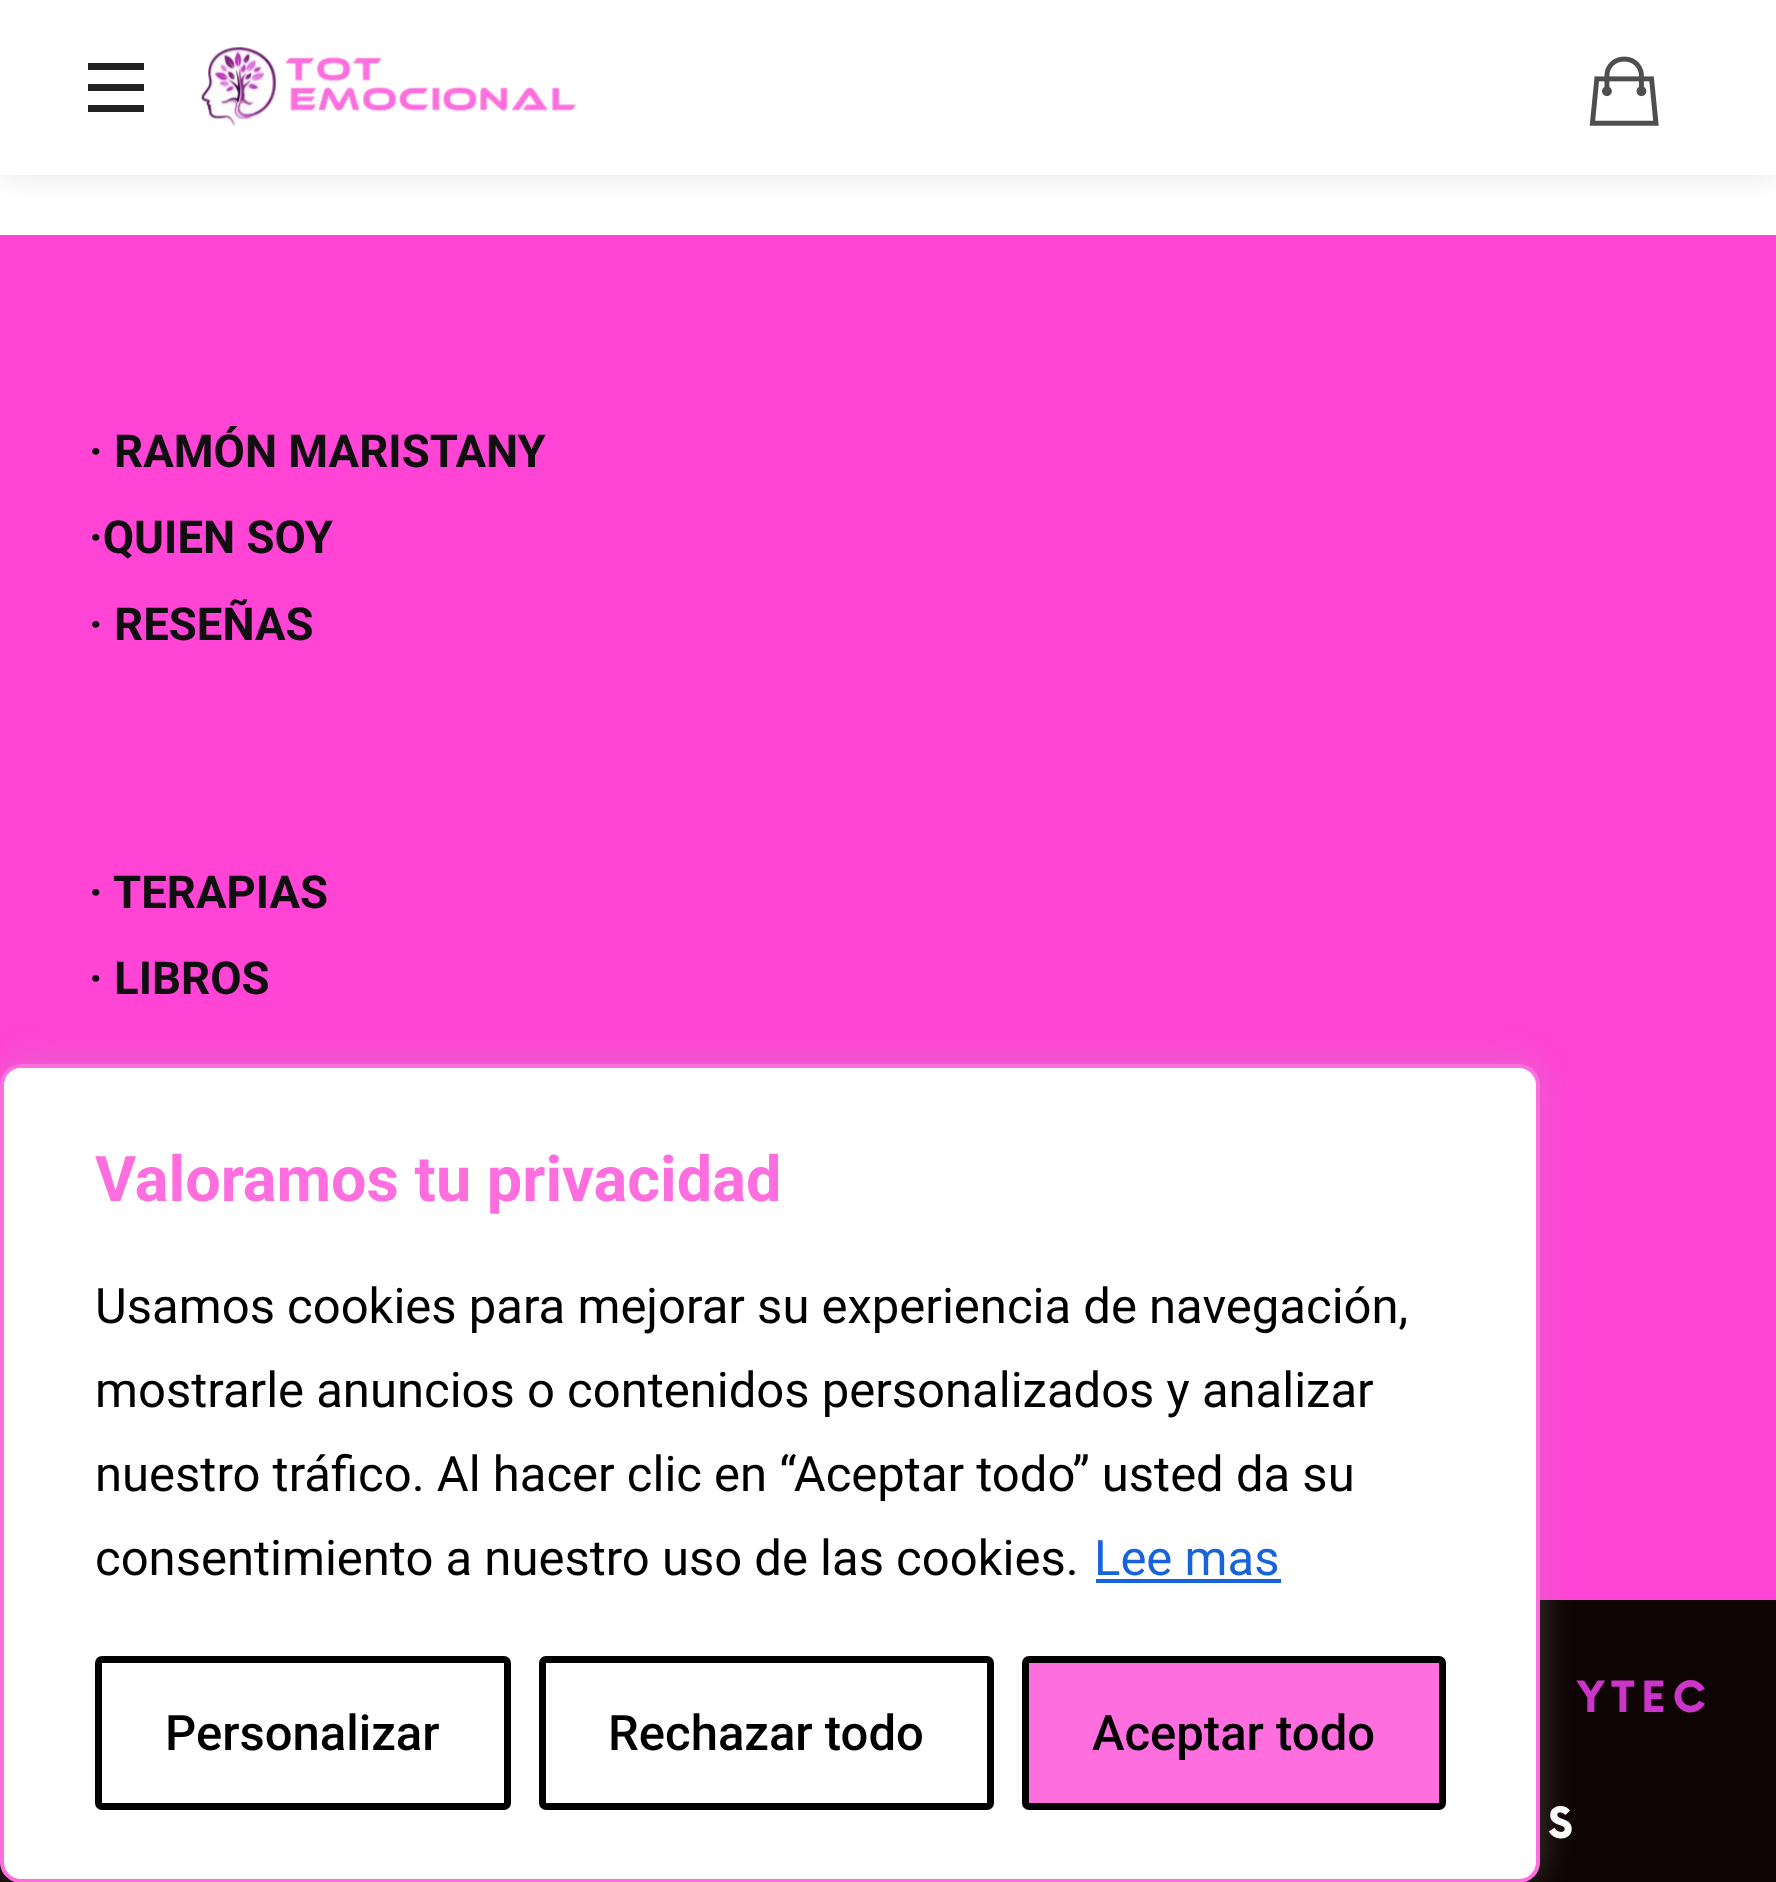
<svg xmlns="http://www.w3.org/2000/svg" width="1776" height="1882">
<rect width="100%" height="100%" fill="#fff"/>
<rect width="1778" height="175" fill="#0000001a" filter="blur(14px)"/>
<rect width="1776" height="175" fill="#fff"/>
<image x="201" y="47" width="376" height="80" href="media/1.png"/>
<rect x="88" y="84" width="56" height="7" fill="#222"/>
<rect x="88" y="63" width="56" height="7" fill="#222"/>
<rect x="88" y="105" width="56" height="7" fill="#222"/>
<image x="1589" y="56" width="70" height="70" href="media/2.png"/>
<rect y="235" width="1776" height="1365" fill="#ff44d6"/>
<text x="89" y="467" style="font-family:Roboto;font-size:45.5px;font-weight:bold;fill:#0f0f0f">· RAMÓN MARISTANY</text>
<text x="89" y="553" style="font-family:Roboto;font-size:45.5px;font-weight:bold;fill:#0f0f0f">·QUIEN SOY</text>
<text x="89" y="640" style="font-family:Roboto;font-size:45.5px;font-weight:bold;fill:#0f0f0f">· RESEÑAS</text>
<text x="89" y="908" style="font-family:Roboto;font-size:45.5px;font-weight:bold;fill:#0f0f0f">·</text>
<text x="113" y="908" style="font-family:Roboto;font-size:45.5px;font-weight:bold;fill:#0f0f0f">TERAPIAS</text>
<text x="89" y="994" style="font-family:Roboto;font-size:45.5px;font-weight:bold;fill:#0f0f0f">· LIBROS</text>
<rect y="1600" width="1776" height="282" fill="#0f0505"/>
<text x="1577" y="1712" style="font-family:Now;font-size:42px;font-weight:bold;letter-spacing:7px;fill:#cc35c9">YTEC</text>
<text x="1548" y="1838" style="font-family:Now;font-size:42px;font-weight:bold;letter-spacing:7px;fill:#fff">S</text>
<rect y="1061" width="1540" height="819" rx="21" fill="#acabab4d" filter="blur(17.5px)"/>
<rect x="2" y="1066" width="1536" height="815" rx="19" fill="#fff" stroke="#fe6edf" stroke-width="4"/>
<text x="95" y="1201" style="font-family:Roboto;font-size:63px;font-weight:bold;fill:#fe6edf">Valoramos tu privacidad</text>
<text x="95" y="1323" style="font-family:Roboto;font-size:49px;fill:#000">Usamos cookies para mejorar su experiencia de navegación,</text>
<text x="95" y="1407" style="font-family:Roboto;font-size:49px;fill:#000">mostrarle anuncios o contenidos personalizados y analizar</text>
<text x="95" y="1491" style="font-family:Roboto;font-size:49px;fill:#000">nuestro tráfico. Al hacer clic en “Aceptar todo” usted da su</text>
<text x="95" y="1575" style="font-family:Roboto;font-size:49px;fill:#000">consentimiento a nuestro uso de las cookies.</text>
<text x="1094" y="1575" style="font-family:Roboto;font-size:49px;fill:#1863dc">Lee mas</text>
<rect x="1096" y="1579" width="185" height="4" fill="#1863dc"/>
<rect x="98.5" y="1659.5" width="409" height="147" rx="3.5" fill="none" stroke="#000" stroke-width="7"/>
<text x="165" y="1750" style="font-family:Roboto;font-size:49px;font-weight:500;fill:#000">Personalizar</text>
<rect x="542.5" y="1659.5" width="448" height="147" rx="3.5" fill="none" stroke="#000" stroke-width="7"/>
<text x="608" y="1750" style="font-family:Roboto;font-size:49px;font-weight:500;fill:#000">Rechazar todo</text>
<rect x="1025.5" y="1659.5" width="417" height="147" rx="3.5" fill="#fe6edf" stroke="#000" stroke-width="7"/>
<text x="1092" y="1750" style="font-family:Roboto;font-size:49px;font-weight:500;fill:#000">Aceptar todo</text>
</svg>
